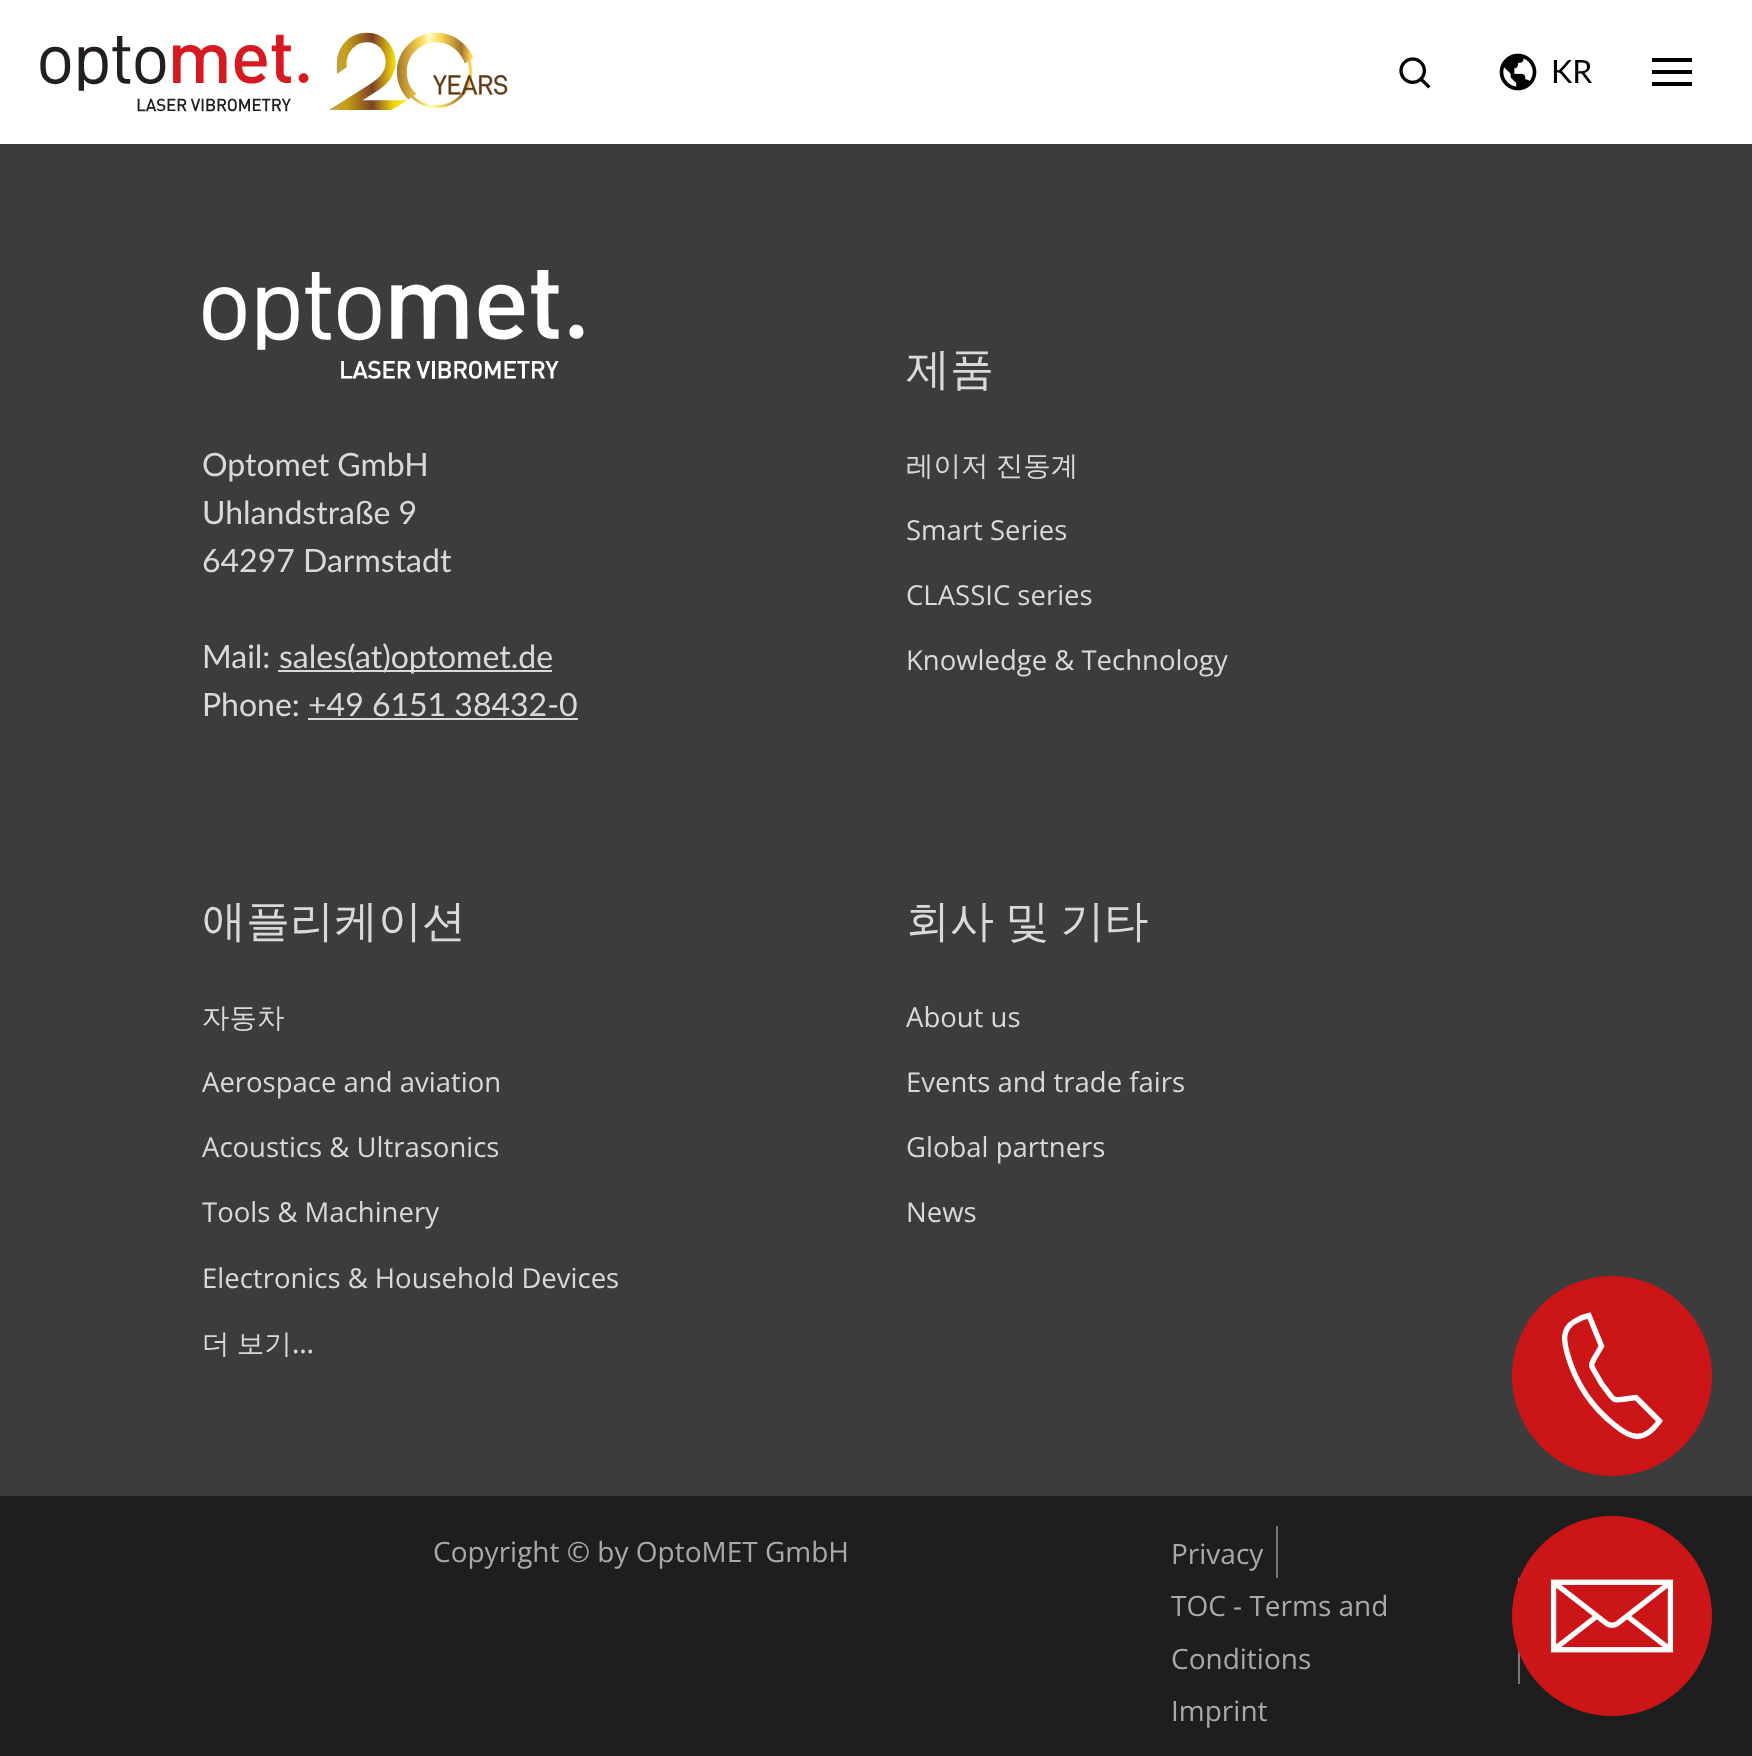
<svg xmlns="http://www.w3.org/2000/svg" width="1752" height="1756">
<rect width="100%" height="100%" fill="#3c3c3d"/>
<rect width="1752" height="144" fill="#fff"/>
<image x="40" y="32" width="468" height="80" href="media/1.png"/>
<image x="1399" y="57" width="32" height="32" href="media/2.png"/>
<image x="1499" y="53" width="38" height="38" href="media/3.png"/>
<text x="1551" y="83" style="font-family:Lato;font-size:32px;fill:#000">KR</text>
<rect x="1652" y="58" width="40" height="4" fill="#000"/>
<rect x="1652" y="70" width="40" height="4" fill="#000"/>
<rect x="1652" y="82" width="40" height="4" fill="#000"/>
<image x="203" y="270" width="381" height="109" href="media/4.png"/>
<text x="202" y="476" style="font-family:Lato;font-size:32px;fill:#d8d9da">Optomet GmbH</text>
<text x="202" y="524" style="font-family:Lato;font-size:32px;fill:#d8d9da">Uhlandstraße 9</text>
<text x="202" y="572" style="font-family:Lato;font-size:32px;fill:#d8d9da">64297 Darmstadt</text>
<text x="202" y="668" style="font-family:Lato;font-size:32px;fill:#d8d9da">Mail:</text>
<rect x="278" y="670" width="274" height="2" fill="#d8d9da"/>
<text x="279" y="668" style="font-family:Lato;font-size:32px;fill:#d8d9da">sales(at)optomet.de</text>
<text x="202" y="716" style="font-family:Lato;font-size:32px;fill:#d8d9da">Phone: +49 6151 38432-0</text>
<rect x="308" y="718" width="270" height="2" fill="#d8d9da"/>
<text x="906" y="384" style="font-family:WenQuanYi Zen Hei;font-size:44px;font-weight:500;fill:#d8d9da">제품</text>
<text x="906" y="475" word-spacing="-1" style="font-family:WenQuanYi Zen Hei;font-size:27.5px;font-weight:500;fill:#d8d9da">레이저 진동계</text>
<text x="906" y="540" style="font-family:Open Sans;font-size:27.5px;fill:#d8d9da">Smart Series</text>
<text x="906" y="605" style="font-family:Open Sans;font-size:27.5px;fill:#d8d9da">CLASSIC series</text>
<text x="906" y="670" style="font-family:Open Sans;font-size:27.5px;fill:#d8d9da">Knowledge &amp; Technology</text>
<text x="202" y="936" style="font-family:WenQuanYi Zen Hei;font-size:44px;font-weight:500;fill:#d8d9da">애플리케이션</text>
<text x="202" y="1027" style="font-family:WenQuanYi Zen Hei;font-size:27.5px;font-weight:500;fill:#d8d9da">자동차</text>
<text x="202" y="1092" style="font-family:Open Sans;font-size:27.5px;fill:#d8d9da">Aerospace and aviation</text>
<text x="202" y="1157" style="font-family:Open Sans;font-size:27.5px;fill:#d8d9da">Acoustics &amp; Ultrasonics</text>
<text x="202" y="1222" style="font-family:Open Sans;font-size:27.5px;fill:#d8d9da">Tools &amp; Machinery</text>
<text x="202" y="1288" style="font-family:Open Sans;font-size:27.5px;fill:#d8d9da">Electronics &amp; Household Devices</text>
<text x="202" y="1353" word-spacing="-1" style="font-family:WenQuanYi Zen Hei;font-size:27.5px;font-weight:500;fill:#d8d9da">더 보기</text>
<text x="292" y="1353" style="font-family:Open Sans;font-size:27.5px;font-weight:500;fill:#d8d9da">…</text>
<text x="906" y="936" word-spacing="-2" style="font-family:WenQuanYi Zen Hei;font-size:44px;font-weight:500;fill:#d8d9da">회사 및 기타</text>
<text x="906" y="1027" style="font-family:Open Sans;font-size:27.5px;fill:#d8d9da">About us</text>
<text x="906" y="1092" style="font-family:Open Sans;font-size:27.5px;fill:#d8d9da">Events and trade fairs</text>
<text x="906" y="1157" style="font-family:Open Sans;font-size:27.5px;fill:#d8d9da">Global partners</text>
<text x="906" y="1222" style="font-family:Open Sans;font-size:27.5px;fill:#d8d9da">News</text>
<rect y="1496" width="1752" height="260" fill="#1e1e1e"/>
<text x="433" y="1562" style="font-family:Open Sans;font-size:28px;fill:#a9a9a9">Copyright © by OptoMET GmbH</text>
<rect x="1276" y="1526" width="2" height="52" fill="#777"/>
<text x="1171" y="1564" style="font-family:Open Sans;font-size:28px;fill:#a9a9a9">Privacy</text>
<rect x="1518" y="1578" width="2" height="106" fill="#777"/>
<text x="1171" y="1616" style="font-family:Open Sans;font-size:28px;fill:#a9a9a9">TOC - Terms and</text>
<text x="1171" y="1669" style="font-family:Open Sans;font-size:28px;fill:#a9a9a9">Conditions</text>
<text x="1171" y="1721" style="font-family:Open Sans;font-size:28px;fill:#a9a9a9">Imprint</text>
<circle cx="1612" cy="1376" r="100" fill="#cb1517"/>
<path d="M1643.5 1405l-7.5-7.5l-15 2c-7 .5-6 1-10.5-4l-9-12l-7.5-13c-3.5-6.5-3-5 0-11.5l7.5-13l-12.5-30.5c-5 1-10 3-14.5 6c-13.5 8-10.5 21-6.5 34.5c8 27 24 51 46 68.5c6.5 5.5 14 11.5 23 12c9 0 17.5-8.5 22.5-15.5l-7.5-7.5z" fill="none" stroke="#fff" stroke-width="5.4"/>
<image x="1512" y="1516" width="200" height="200" href="media/5.png"/>
</svg>
